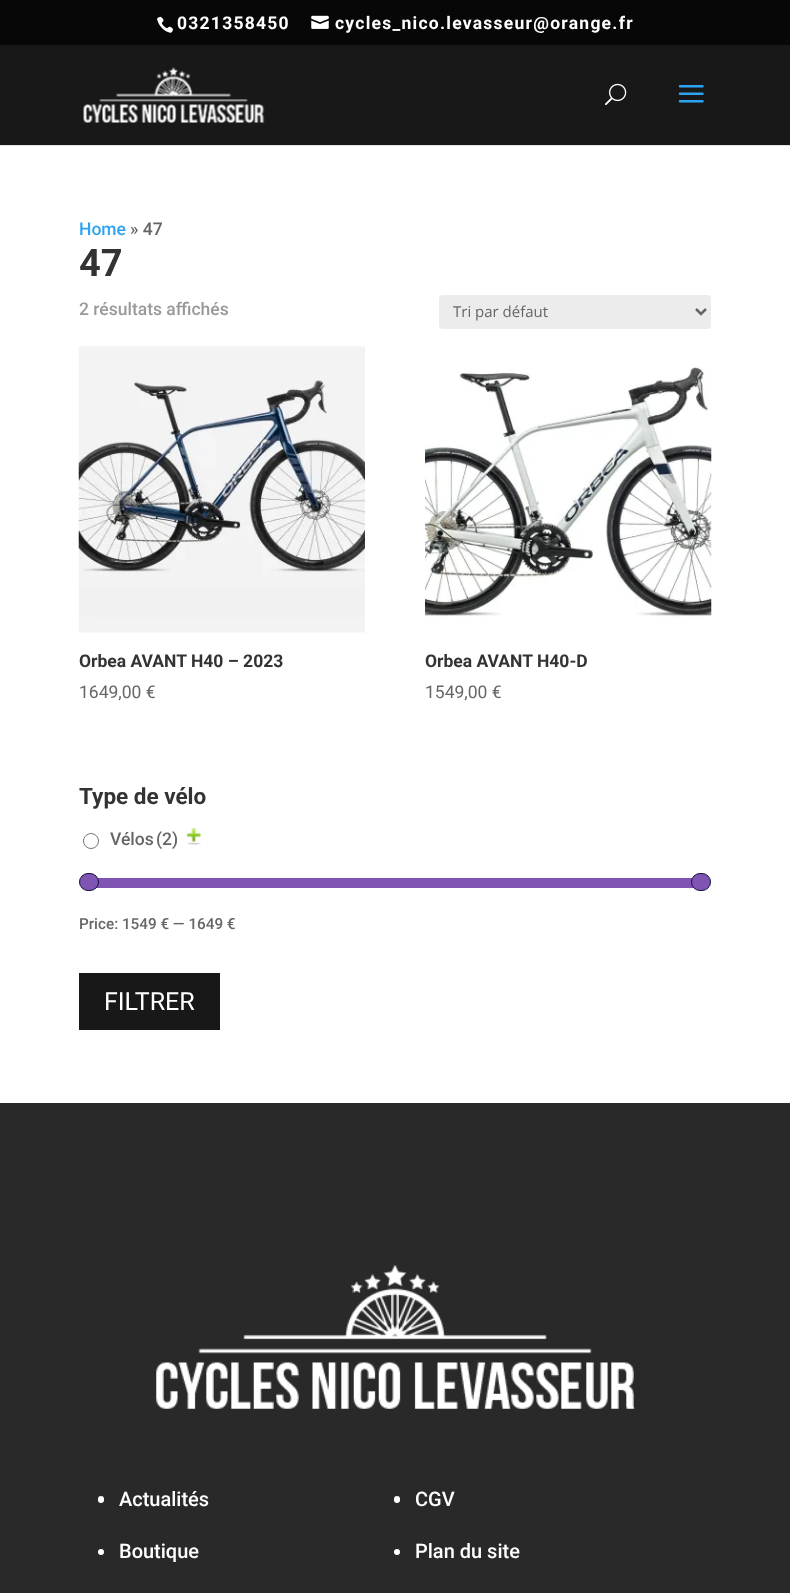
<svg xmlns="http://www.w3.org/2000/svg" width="790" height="1593">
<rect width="100%" height="100%" fill="#fff"/>
<rect width="790" height="45" fill="#070707"/>
<image x="157" y="16" width="16" height="17" href="media/1.png"/>
<text x="177" y="29" style="font-family:Roboto;font-size:17.5px;font-weight:bold;letter-spacing:1.25px;fill:#fff">0321358450</text>
<image x="311" y="15" width="18" height="14" href="media/2.png"/>
<text x="335" y="29" style="font-family:Roboto;font-size:17.5px;font-weight:bold;letter-spacing:1.25px;fill:#fff">cycles_nico.levasseur@orange.fr</text>
<rect y="145" width="790" height="1" fill="#e6e6e6"/>
<rect y="45" width="790" height="100" fill="#181818"/>
<image x="83" y="67" width="182" height="56" href="media/3.png"/>
<image x="605" y="83" width="22" height="23" href="media/4.png"/>
<image x="678" y="85" width="26" height="18" href="media/5.png"/>
<text x="79" y="235" style="font-family:Roboto;font-size:17.5px;font-weight:500;fill:#2ea3f2">Home</text>
<text x="130" y="235" style="font-family:Roboto;font-size:17.5px;font-weight:500;fill:#666">» 47</text>
<text x="79" y="276" style="font-family:Roboto;font-size:38px;font-weight:bold;fill:#333">47</text>
<text x="79" y="315" style="font-family:Roboto;font-size:17.5px;font-weight:500;fill:#999">2 résultats affichés</text>
<rect x="439" y="295" width="272" height="34" rx="4" fill="#ececec"/>
<path d="M696 309l5 5l5-5" fill="none" stroke="#666" stroke-width="2.5"/>
<text x="453" y="317" style="font-family:Open Sans;font-size:15px;fill:#666">Tri par défaut</text>
<image x="78" y="346" width="287" height="287" href="media/6.png"/>
<text x="79" y="667" style="font-family:Roboto;font-size:17.5px;font-weight:bold;fill:#333">Orbea AVANT H40 – 2023</text>
<text x="79" y="698" style="font-family:Roboto;font-size:17.5px;fill:#666">1649,00 €</text>
<image x="425" y="367" width="287" height="250" href="media/7.png"/>
<text x="425" y="667" style="font-family:Roboto;font-size:17.5px;font-weight:bold;fill:#333">Orbea AVANT H40-D</text>
<text x="425" y="698" style="font-family:Roboto;font-size:17.5px;fill:#666">1549,00 €</text>
<text x="79" y="804" style="font-family:Roboto;font-size:22.5px;font-weight:bold;fill:#333">Type de vélo</text>
<circle cx="91" cy="841" r="7.5" fill="none" stroke="#767676"/>
<text x="110" y="845" style="font-family:Roboto;font-size:17.5px;font-weight:500;fill:#666">Vélos</text>
<text x="156" y="845" style="font-family:Roboto;font-size:17.5px;font-weight:500;fill:#666">(2)</text>
<image x="187" y="828" width="14" height="17" href="media/8.png"/>
<rect x="96" y="878" width="598" height="10" fill="#7f54b3"/>
<rect x="79.5" y="873.5" width="19" height="17" rx="8.5" fill="#7f54b3" stroke="#141741"/>
<rect x="691.5" y="873.5" width="19" height="17" rx="8.5" fill="#7f54b3" stroke="#141741"/>
<text x="79" y="929" style="font-family:Roboto;font-size:15.25px;font-weight:500;fill:#666">Price: 1549 € — 1649 €</text>
<rect x="79" y="973" width="141" height="57" fill="#181818"/>
<text x="104" y="1010" style="font-family:Roboto;font-size:25px;fill:#fff">FILTRER</text>
<rect y="1103" width="790" height="490" fill="#292929"/>
<image x="156" y="1265" width="479" height="144" href="media/9.png"/>
<rect x="98" y="1496" width="6" height="7" rx="3" fill="#fff"/>
<text x="119" y="1506" style="font-family:Roboto;font-size:20px;font-weight:500;fill:#fff">Actualités</text>
<circle cx="101" cy="1552" r="3" fill="#fff"/>
<text x="119" y="1558" style="font-family:Roboto;font-size:20px;font-weight:500;fill:#fff">Boutique</text>
<rect x="394" y="1496" width="6" height="7" rx="3" fill="#fff"/>
<text x="415" y="1506" style="font-family:Roboto;font-size:20px;font-weight:500;fill:#fff">CGV</text>
<circle cx="397" cy="1552" r="3" fill="#fff"/>
<text x="415" y="1558" style="font-family:Roboto;font-size:20px;font-weight:500;fill:#fff">Plan du site</text>
</svg>
